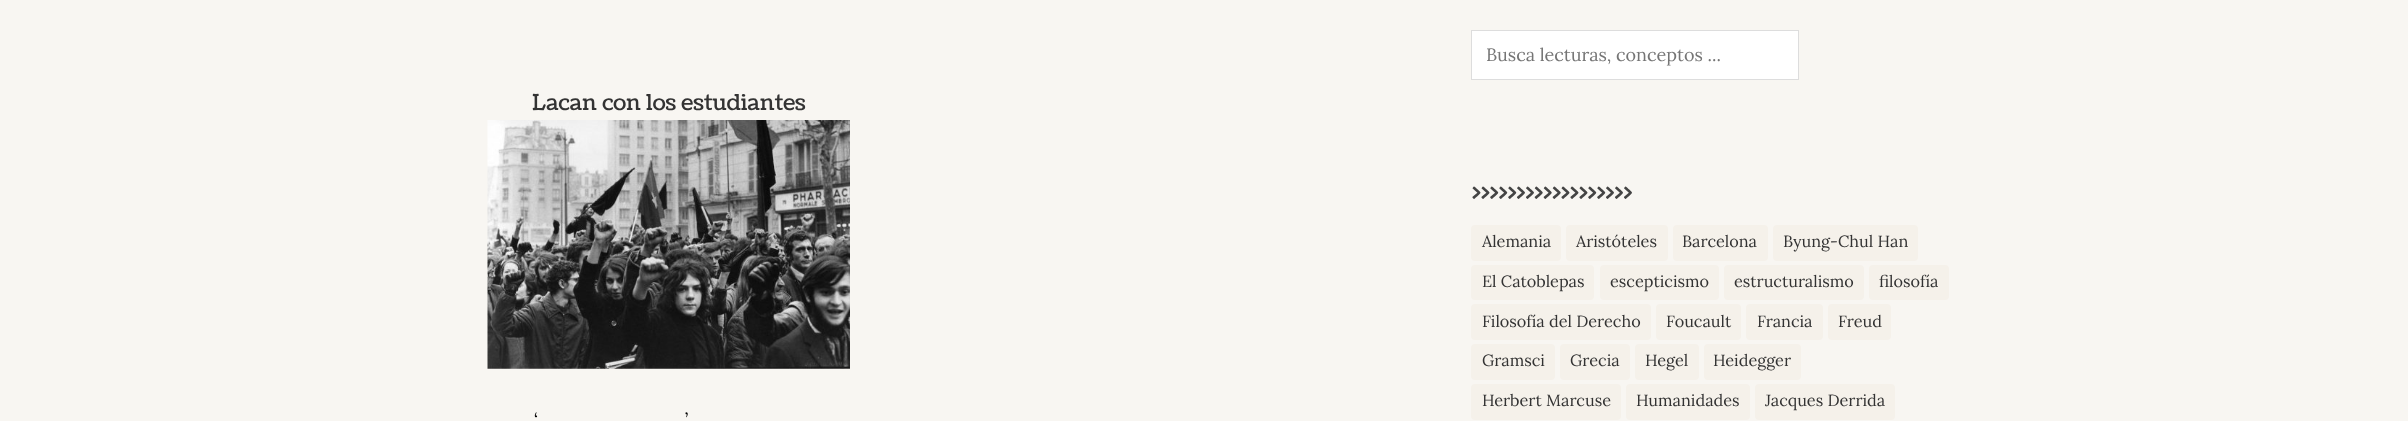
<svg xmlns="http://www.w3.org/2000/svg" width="2408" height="421">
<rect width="100%" height="100%" fill="#f8f6f2"/>
<text x="532" y="110" style="font-family:Coustard;font-size:22px;fill:#333">Lacan con los estudiantes</text>
<image x="487" y="120" width="363" height="249" href="media/1.png"/>
<text x="534" y="426" style="font-family:Lora;font-size:18px;fill:#000">‘</text>
<text x="685" y="426" style="font-family:Lora;font-size:18px;fill:#000">’</text>
<rect x="1471.5" y="30.5" width="327" height="49" fill="#fff" stroke="#ddd"/>
<text x="1486" y="61" style="font-family:Lora;font-size:18px;fill:#757575">Busca lecturas, conceptos ...</text>
<text x="1472" y="199" style="font-family:Coustard;font-size:24px;fill:#444">&gt;&gt;&gt;&gt;&gt;&gt;&gt;&gt;&gt;&gt;&gt;&gt;&gt;&gt;&gt;&gt;&gt;&gt;</text>
<rect x="1471" y="225" width="90" height="36" rx="4" fill="#f5f1ea"/>
<text x="1482" y="247" style="font-family:Lora;font-size:16.25px;fill:#333">Alemania</text>
<rect x="1566" y="225" width="102" height="36" rx="4" fill="#f5f1ea"/>
<text x="1576" y="247" style="font-family:Lora;font-size:16.25px;fill:#333">Aristóteles</text>
<rect x="1673" y="225" width="95" height="36" rx="4" fill="#f5f1ea"/>
<text x="1682" y="247" style="font-family:Lora;font-size:16.25px;fill:#333">Barcelona</text>
<rect x="1773" y="225" width="145" height="36" rx="4" fill="#f5f1ea"/>
<text x="1783" y="247" style="font-family:Lora;font-size:16.25px;fill:#333">Byung-Chul Han</text>
<rect x="1471" y="265" width="123" height="35" rx="4" fill="#f5f1ea"/>
<text x="1482" y="287" style="font-family:Lora;font-size:16.25px;fill:#333">El Catoblepas</text>
<rect x="1600" y="265" width="119" height="35" rx="4" fill="#f5f1ea"/>
<text x="1610" y="287" style="font-family:Lora;font-size:16.25px;fill:#333">escepticismo</text>
<rect x="1724" y="265" width="140" height="35" rx="4" fill="#f5f1ea"/>
<text x="1734" y="287" style="font-family:Lora;font-size:16.25px;fill:#333">estructuralismo</text>
<rect x="1869" y="265" width="80" height="35" rx="4" fill="#f5f1ea"/>
<text x="1879" y="287" style="font-family:Lora;font-size:16.25px;fill:#333">filosofía</text>
<rect x="1471" y="304" width="180" height="36" rx="4" fill="#f5f1ea"/>
<text x="1482" y="327" style="font-family:Lora;font-size:16.25px;fill:#333">Filosofía del Derecho</text>
<rect x="1656" y="304" width="85" height="36" rx="4" fill="#f5f1ea"/>
<text x="1666" y="327" style="font-family:Lora;font-size:16.25px;fill:#333">Foucault</text>
<rect x="1746" y="304" width="77" height="36" rx="4" fill="#f5f1ea"/>
<text x="1757" y="327" style="font-family:Lora;font-size:16.25px;fill:#333">Francia</text>
<rect x="1828" y="304" width="63" height="36" rx="4" fill="#f5f1ea"/>
<text x="1838" y="327" style="font-family:Lora;font-size:16.25px;fill:#333">Freud</text>
<rect x="1471" y="344" width="84" height="36" rx="4" fill="#f5f1ea"/>
<text x="1482" y="366" style="font-family:Lora;font-size:16.25px;fill:#333">Gramsci</text>
<rect x="1560" y="344" width="70" height="36" rx="4" fill="#f5f1ea"/>
<text x="1570" y="366" style="font-family:Lora;font-size:16.25px;fill:#333">Grecia</text>
<rect x="1635" y="344" width="64" height="36" rx="4" fill="#f5f1ea"/>
<text x="1645" y="366" style="font-family:Lora;font-size:16.25px;fill:#333">Hegel</text>
<rect x="1704" y="344" width="97" height="36" rx="4" fill="#f5f1ea"/>
<text x="1713" y="366" style="font-family:Lora;font-size:16.25px;fill:#333">Heidegger</text>
<rect x="1471" y="384" width="150" height="36" rx="4" fill="#f5f1ea"/>
<text x="1482" y="406" style="font-family:Lora;font-size:16.25px;fill:#333">Herbert Marcuse</text>
<rect x="1626" y="384" width="124" height="36" rx="4" fill="#f5f1ea"/>
<text x="1636" y="406" style="font-family:Lora;font-size:16.25px;fill:#333">Humanidades</text>
<rect x="1755" y="384" width="140" height="36" rx="4" fill="#f5f1ea"/>
<text x="1765" y="406" style="font-family:Lora;font-size:16.25px;fill:#333">Jacques Derrida</text>
</svg>
